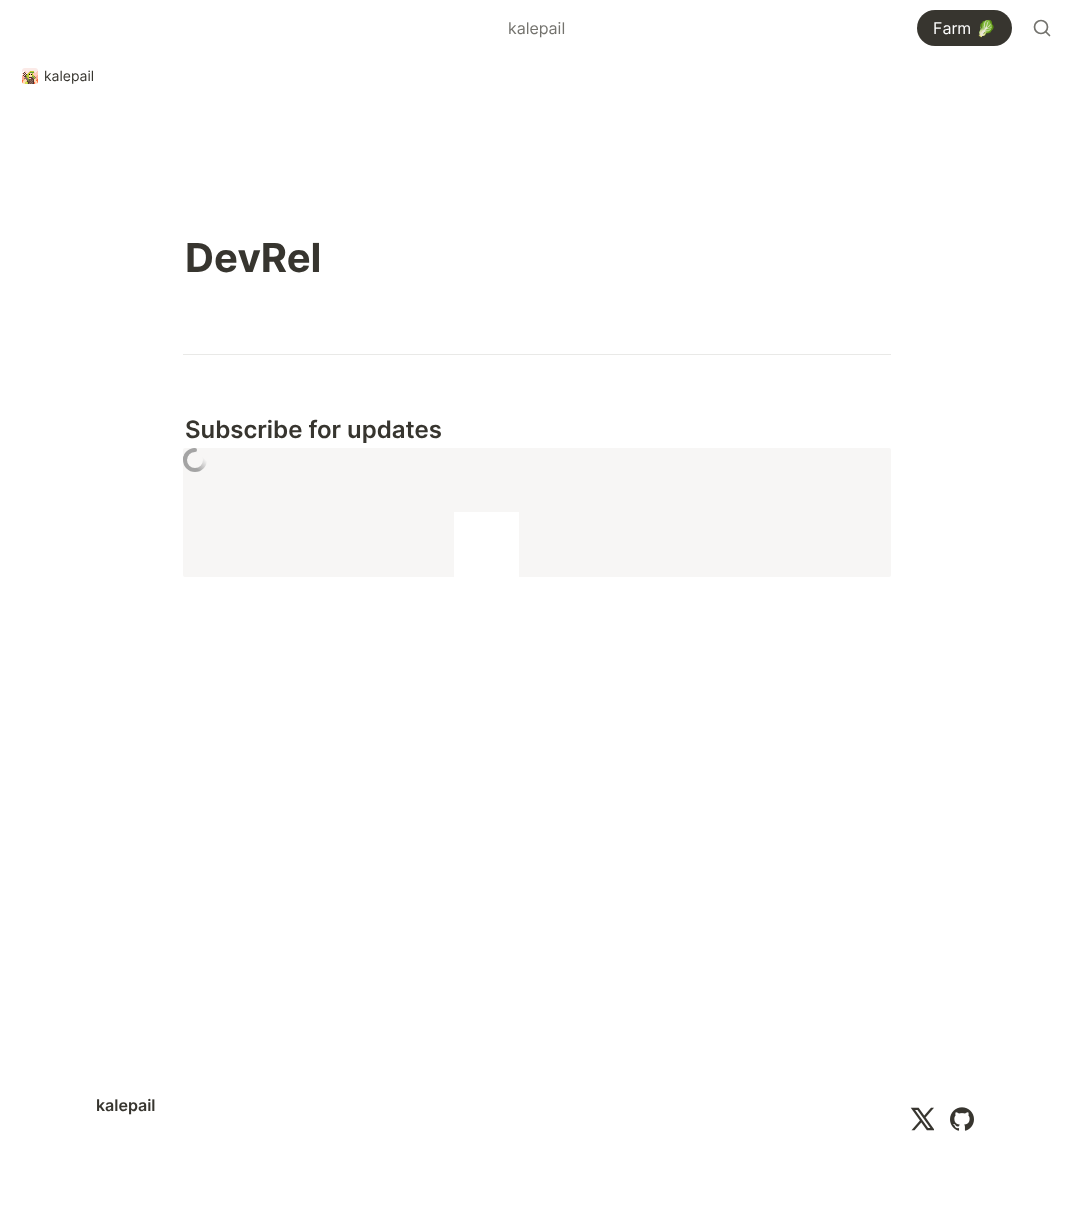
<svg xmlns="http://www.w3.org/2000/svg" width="1074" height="1215">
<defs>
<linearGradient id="g1" gradientUnits="userSpaceOnUse" x1="191" y1="463" x2="200" y2="454"><stop offset="0" stop-color="#a4a4a4"/><stop offset="1" stop-color="#f7f6f5"/></linearGradient>
</defs>
<rect width="100%" height="100%" fill="#fff"/>
<text x="508" y="34" style="font-family:Inter;font-size:16px;fill:#73726d">kalepail</text>
<rect x="917" y="10" width="95" height="36" rx="18" fill="#37352f"/>
<text x="933" y="34" style="font-family:Inter;font-size:16px;fill:#fff">Farm</text>
<text x="976" y="34" style="font-family:Noto Color Emoji;font-size:16px;fill:#fff">🥬</text>
<circle cx="1041" cy="27" r="6.5" fill="none" stroke="#73726d" stroke-width="1.7"/>
<path d="M1049.5 35.5l-3.5-3.5" fill="none" stroke="#73726d" stroke-width="1.7" stroke-linecap="round" stroke-linejoin="round"/>
<image x="22" y="68" width="16" height="16" href="media/1.png"/>
<text x="44" y="81" style="font-family:Inter;font-size:14px;fill:#37352f">kalepail</text>
<text x="185" y="272" style="font-family:Inter;font-size:40px;font-weight:bold;fill:#37352f">DevRel</text>
<rect x="183" y="354" width="708" height="1" fill="#e9e9e7"/>
<text x="185" y="438" style="font-family:Inter;font-size:24px;font-weight:600;fill:#37352f">Subscribe for updates</text>
<rect x="183" y="448" width="708" height="129" rx="2" fill="#f7f6f5"/>
<circle cx="195" cy="460" r="10" fill="none" stroke="url(#g1)" stroke-width="4"/>
<path d="M195 450c-5.5 0-10 4.5-10 10" fill="none" stroke="#a4a4a4" stroke-width="4"/>
<circle cx="195" cy="450" r="2" fill="#a4a4a4"/>
<rect x="454" y="512" width="65" height="65" fill="#fff"/>
<text x="96" y="1111" style="font-family:Inter;font-size:16px;font-weight:600;fill:#37352f">kalepail</text>
<image x="910" y="1107" width="24" height="24" href="media/2.png"/>
<image x="950" y="1107" width="24" height="24" href="media/3.png"/>
</svg>
